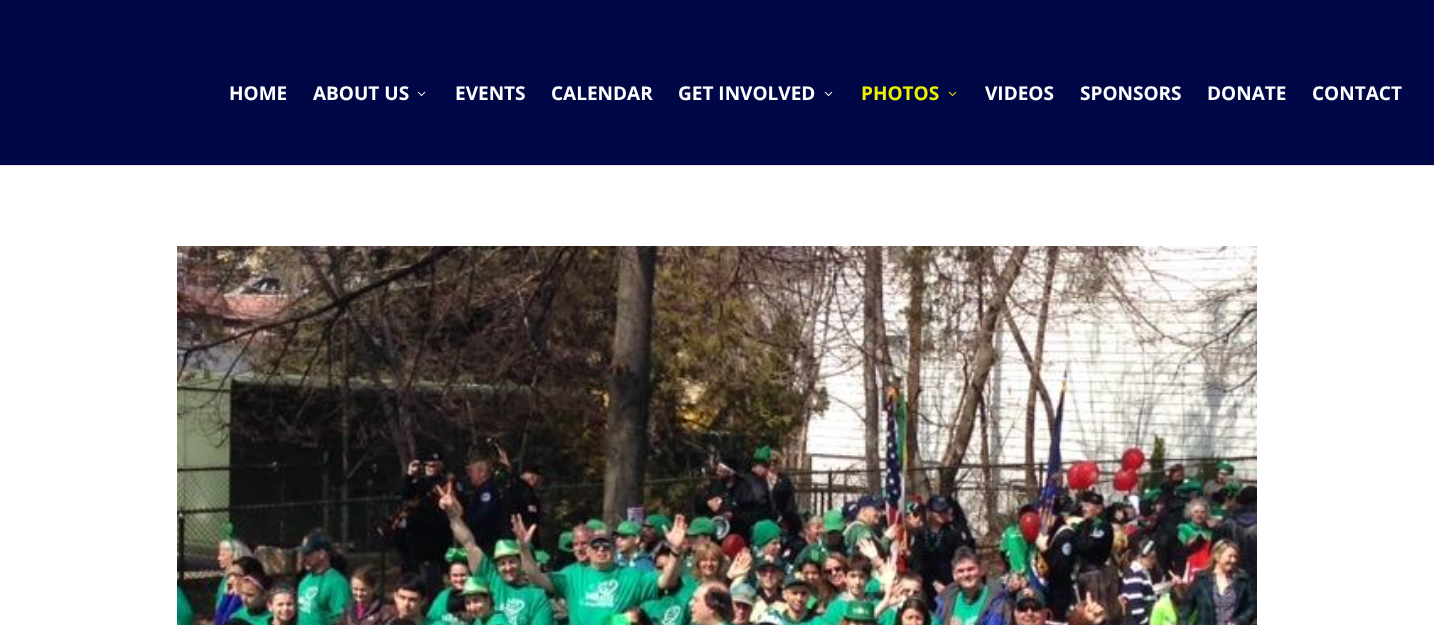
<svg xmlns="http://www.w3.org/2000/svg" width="1434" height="625">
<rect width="100%" height="100%" fill="#fff"/>
<rect y="165" width="1434" height="1" fill="#e6e6e6"/>
<rect width="1434" height="165" fill="#000747"/>
<text x="229" y="100" style="font-family:Open Sans;font-size:19px;font-weight:bold;fill:#fff">HOME</text>
<text x="313" y="100" style="font-family:Open Sans;font-size:19px;font-weight:bold;fill:#fff">ABOUT US</text>
<image x="417" y="91" width="9" height="5" href="media/1.png"/>
<text x="455" y="100" style="font-family:Open Sans;font-size:19px;font-weight:bold;fill:#fff">EVENTS</text>
<text x="551" y="100" style="font-family:Open Sans;font-size:19px;font-weight:bold;fill:#fff">CALENDAR</text>
<text x="678" y="100" style="font-family:Open Sans;font-size:19px;font-weight:bold;fill:#fff">GET INVOLVED</text>
<image x="824" y="91" width="9" height="5" href="media/1.png"/>
<text x="861" y="100" style="font-family:Open Sans;font-size:19px;font-weight:bold;fill:#edf000">PHOTOS</text>
<image x="948" y="91" width="9" height="5" href="media/2.png"/>
<text x="985" y="100" style="font-family:Open Sans;font-size:19px;font-weight:bold;fill:#fff">VIDEOS</text>
<text x="1080" y="100" style="font-family:Open Sans;font-size:19px;font-weight:bold;fill:#fff">SPONSORS</text>
<text x="1207" y="100" style="font-family:Open Sans;font-size:19px;font-weight:bold;fill:#fff">DONATE</text>
<text x="1312" y="100" style="font-family:Open Sans;font-size:19px;font-weight:bold;fill:#fff">CONTACT</text>
<image x="177" y="246" width="1080" height="379" href="media/3.png"/>
</svg>
